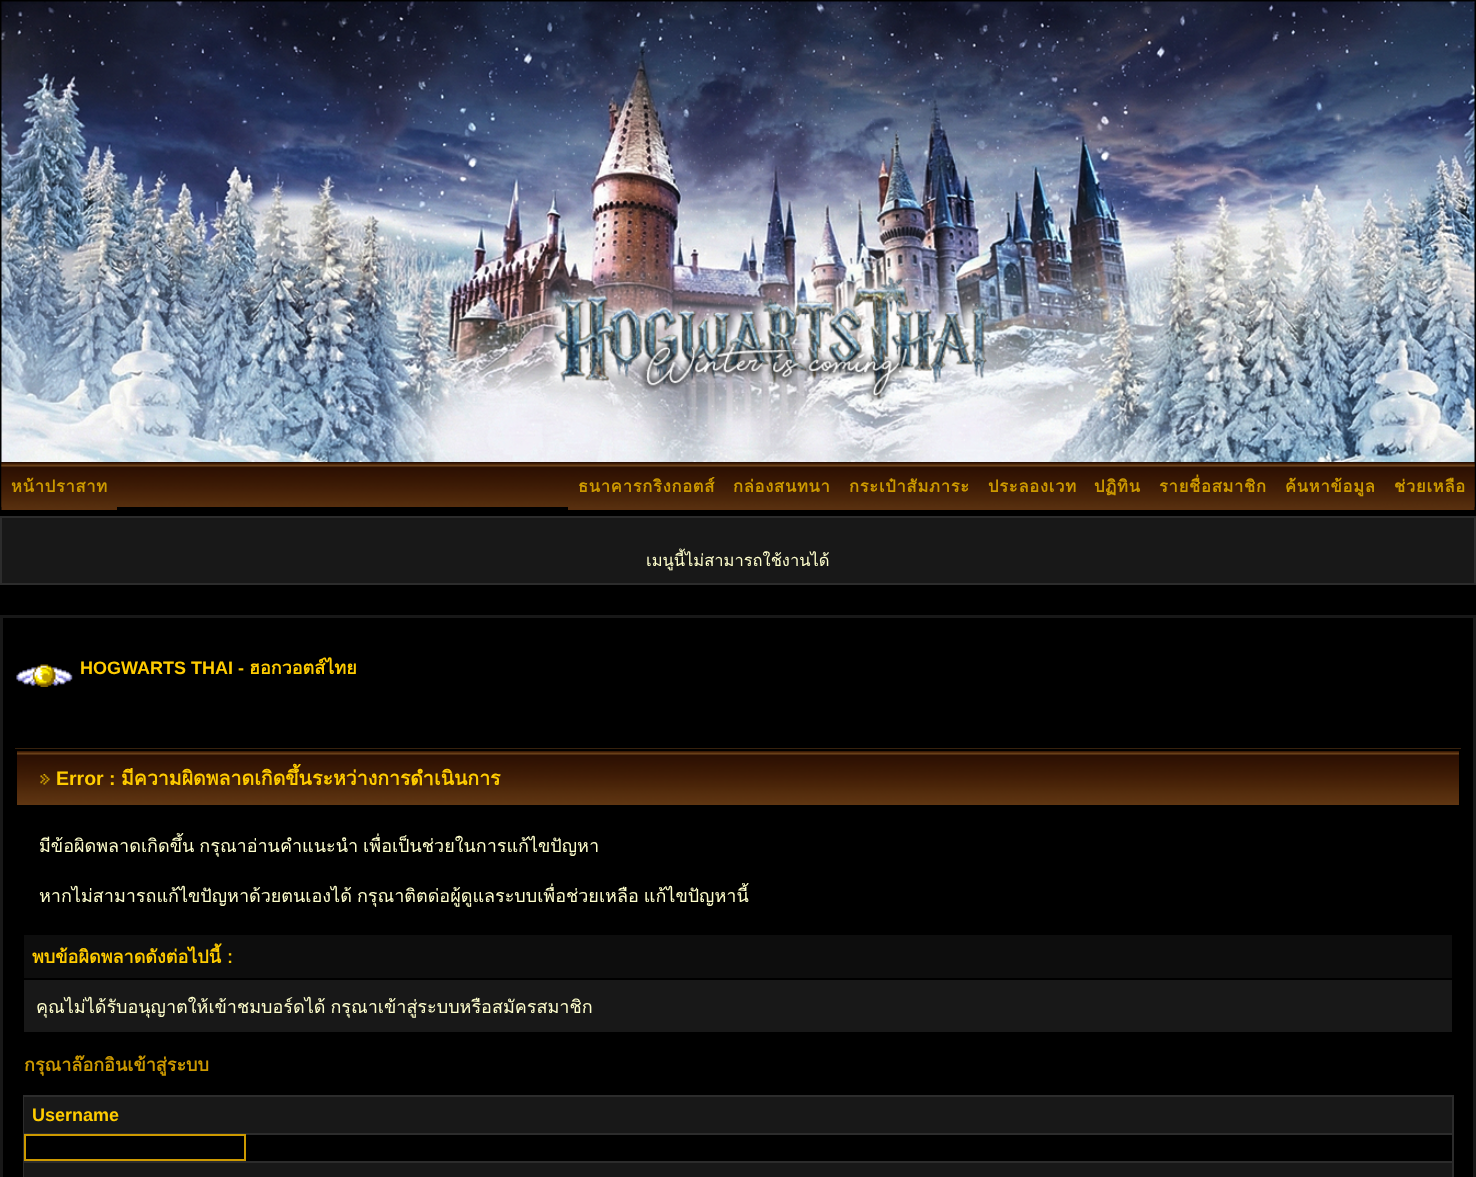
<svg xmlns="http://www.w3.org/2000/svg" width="1476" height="1177">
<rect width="100%" height="100%" fill="#000"/>
<image x="1" y="1" width="1474" height="461" href="media/1.png"/>
<image x="1" y="462" width="1474" height="45" href="media/2.png"/>
<image x="1" y="462" width="116" height="48" href="media/3.png"/>
<text x="11" y="492" style="font-family:Loma;font-size:16.5px;font-weight:bold;letter-spacing:0.75px;fill:#c90">หน้าปราสาท</text>
<text x="578" y="492" style="font-family:Loma;font-size:16.5px;font-weight:bold;letter-spacing:0.75px;fill:#c90">ธนาคารกริงกอตส์</text>
<text x="733" y="492" style="font-family:Loma;font-size:16.5px;font-weight:bold;letter-spacing:0.75px;fill:#c90">กล่องสนทนา</text>
<text x="849" y="492" style="font-family:Loma;font-size:16.5px;font-weight:bold;letter-spacing:0.75px;fill:#c90">กระเป๋าสัมภาระ</text>
<text x="988" y="492" style="font-family:Loma;font-size:16.5px;font-weight:bold;letter-spacing:0.75px;fill:#c90">ประลองเวท</text>
<text x="1094" y="492" style="font-family:Loma;font-size:16.5px;font-weight:bold;letter-spacing:0.75px;fill:#c90">ปฏิทิน</text>
<text x="1159" y="492" style="font-family:Loma;font-size:16.5px;font-weight:bold;letter-spacing:0.75px;fill:#c90">รายชื่อสมาชิก</text>
<image x="1384" y="462" width="91" height="48" href="media/4.png"/>
<rect x="568" y="507" width="817" height="3" fill="#582f0f"/>
<text x="1285" y="492" style="font-family:Loma;font-size:16.5px;font-weight:bold;letter-spacing:0.75px;fill:#c90">ค้นหาข้อมูล</text>
<text x="1394" y="492" style="font-family:Loma;font-size:16.5px;font-weight:bold;letter-spacing:0.75px;fill:#c90">ช่วยเหลือ</text>
<rect x="1" y="517" width="1474" height="67" fill="#181818" stroke="#2c2c2c" stroke-width="2"/>
<text x="646" y="566" style="font-family:Loma;font-size:16.5px;fill:#ffc">เมนูนี้ไม่สามารถใช้งานได้</text>
<rect x="1.5" y="616.5" width="1473" height="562" fill="none" stroke="#181818" stroke-width="3"/>
<image x="16" y="664" width="57" height="23" href="media/5.png"/>
<text x="80" y="674" style="font-family:Liberation Sans;font-size:18px;font-weight:bold;fill:#fc0">HOGWARTS THAI -</text>
<text x="249" y="674" style="font-family:Loma;font-size:18px;font-weight:bold;fill:#fc0">ฮอกวอตส์ไทย</text>
<image x="15" y="748" width="1446" height="57" href="media/6.png"/>
<rect x="16" y="750" width="1444" height="56" fill="none" stroke="#000" stroke-width="2"/>
<image x="40" y="774" width="10" height="11" href="media/7.png"/>
<text x="56" y="785" style="font-family:Liberation Sans;font-size:19.5px;font-weight:bold;fill:#fc0">Error :</text>
<text x="121" y="785" style="font-family:Loma;font-size:19.5px;font-weight:bold;fill:#fc0">มีความผิดพลาดเกิดขึ้นระหว่างการดำเนินการ</text>
<text x="39" y="852" word-spacing="-1" style="font-family:Loma;font-size:18px;fill:#ffc">มีข้อผิดพลาดเกิดขึ้น กรุณาอ่านคำแนะนำ เพื่อเป็นช่วยในการแก้ไขปัญหา</text>
<text x="39" y="902" word-spacing="-1" style="font-family:Loma;font-size:18px;fill:#ffc">หากไม่สามารถแก้ไขปัญหาด้วยตนเองได้ กรุณาติตด่อผู้ดูแลระบบเพื่อช่วยเหลือ แก้ไขปัญหานี้</text>
<rect x="24" y="935" width="1428" height="43" fill="#0d0d0d"/>
<text x="32" y="963" style="font-family:Loma;font-size:18px;font-weight:bold;fill:#fc0">พบข้อผิดพลาดดังต่อไปนี้ :</text>
<rect x="24" y="980" width="1428" height="52" fill="#181818"/>
<text x="36" y="1013" word-spacing="-1" style="font-family:Loma;font-size:18px;fill:#ffc">คุณไม่ได้รับอนุญาตให้เข้าชมบอร์ดได้ กรุณาเข้าสู่ระบบหรือสมัครสมาชิก</text>
<text x="24" y="1071" style="font-family:Loma;font-size:18px;font-weight:bold;fill:#c90">กรุณาล๊อกอินเข้าสู่ระบบ</text>
<rect x="1452" y="1095" width="2" height="82" fill="#2c2c2c"/>
<rect x="23" y="1095" width="1" height="82" fill="#2c2c2c"/>
<rect x="24" y="1097" width="1428" height="36" fill="#181818"/>
<rect x="24" y="1095" width="1428" height="2" fill="#2c2c2c"/>
<rect x="24" y="1133" width="1428" height="2" fill="#2c2c2c"/>
<text x="32" y="1121" style="font-family:Liberation Sans;font-size:18px;font-weight:bold;fill:#fc0">Username</text>
<rect x="25" y="1135" width="220" height="25" fill="none" stroke="#c90" stroke-width="2"/>
<rect x="24" y="1163" width="1428" height="14" fill="#181818"/>
<rect x="24" y="1161" width="1428" height="2" fill="#2c2c2c"/>
</svg>
